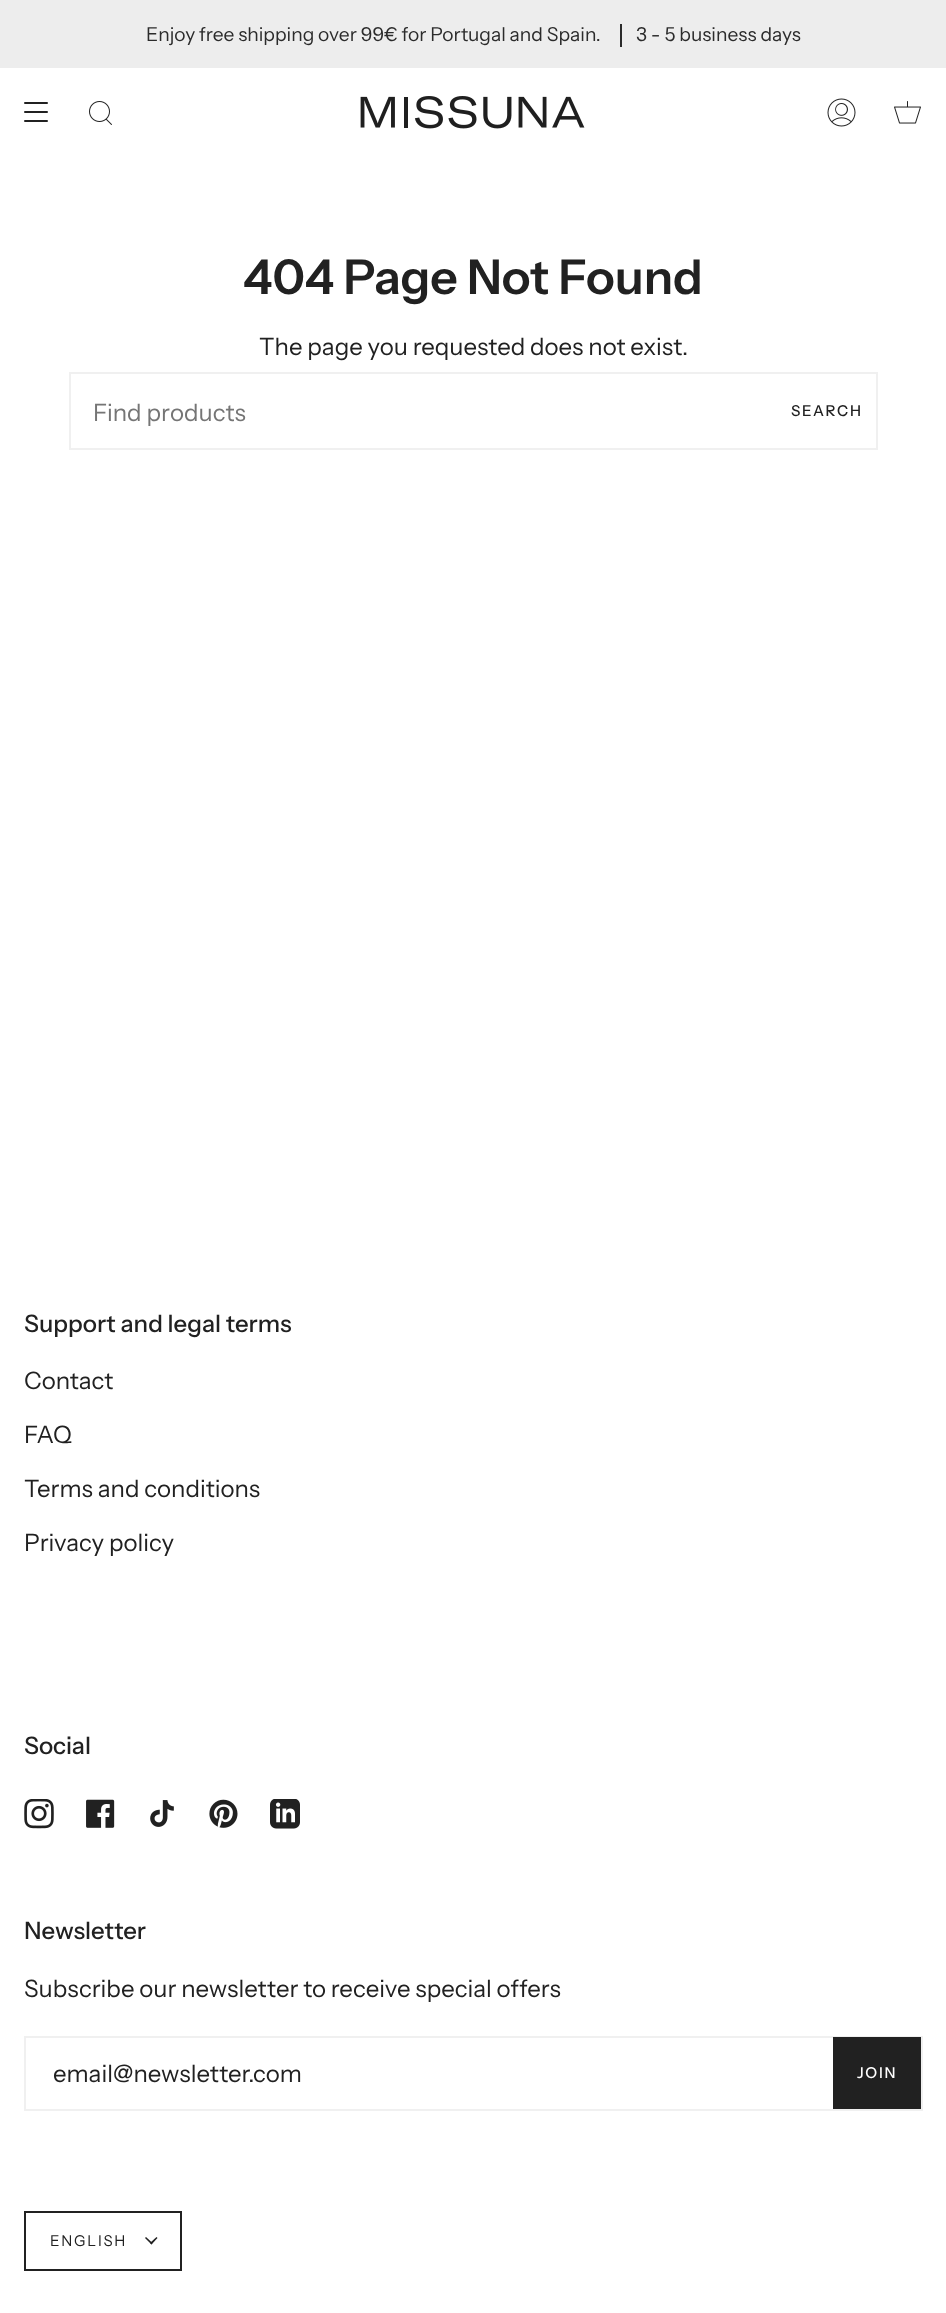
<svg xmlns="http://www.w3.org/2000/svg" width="946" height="2313">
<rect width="100%" height="100%" fill="#fff"/>
<rect width="946" height="68" fill="#ededed"/>
<text x="146" y="41" style="font-family:Instrument Sans;font-size:19.2px;fill:#2b2b2b">Enjoy free shipping over 99€ for Portugal and Spain.</text>
<rect x="620" y="24" width="2" height="23" fill="#2b2b2b"/>
<text x="636" y="41" style="font-family:Instrument Sans;font-size:19.2px;fill:#2b2b2b">3 - 5 business days</text>
<rect x="24" y="102" width="24" height="2" rx="1" fill="#212121"/>
<rect x="24" y="111" width="24" height="2" rx="1" fill="#212121"/>
<rect x="24" y="120" width="24" height="2" rx="1" fill="#212121"/>
<image x="89" y="101" width="23" height="24" href="media/1.png"/>
<image x="360" y="96" width="225" height="33" href="media/2.png"/>
<image x="827" y="98" width="29" height="29" href="media/3.png"/>
<image x="894" y="101" width="27" height="23" href="media/4.png"/>
<text x="243" y="294" style="font-family:Instrument Sans;font-size:48px;font-weight:600;fill:#212121">404 Page Not Found</text>
<text x="259" y="355" style="font-family:Instrument Sans;font-size:24px;fill:#212121">The page you requested does not exist.</text>
<rect x="70" y="373" width="807" height="76" fill="none" stroke="#f0f0f0" stroke-width="2"/>
<text x="93" y="421" style="font-family:Instrument Sans;font-size:24px;fill:#757575">Find products</text>
<text x="791" y="416" style="font-family:Instrument Sans;font-size:15px;font-weight:500;letter-spacing:1.75px;fill:#212121">SEARCH</text>
<text x="24" y="1332" style="font-family:Instrument Sans;font-size:24px;font-weight:500;fill:#212121">Support and legal terms</text>
<text x="24" y="1389" style="font-family:Instrument Sans;font-size:24px;fill:#212121">Contact</text>
<text x="24" y="1443" style="font-family:Instrument Sans;font-size:24px;fill:#212121">FAQ</text>
<text x="24" y="1497" style="font-family:Instrument Sans;font-size:24px;fill:#212121">Terms and conditions</text>
<text x="24" y="1551" style="font-family:Instrument Sans;font-size:24px;fill:#212121">Privacy policy</text>
<text x="24" y="1754" style="font-family:Instrument Sans;font-size:24px;font-weight:500;fill:#212121">Social</text>
<image x="24" y="1799" width="30" height="30" href="media/5.png"/>
<image x="86" y="1799" width="29" height="29" href="media/6.png"/>
<image x="150" y="1800" width="24" height="27" href="media/7.png"/>
<image x="209" y="1799" width="29" height="29" href="media/8.png"/>
<image x="270" y="1799" width="30" height="30" href="media/9.png"/>
<text x="24" y="1939" style="font-family:Instrument Sans;font-size:24px;font-weight:500;fill:#212121">Newsletter</text>
<text x="24" y="1997" style="font-family:Instrument Sans;font-size:24px;fill:#212121">Subscribe our newsletter to receive special offers</text>
<rect x="25" y="2037" width="897" height="73" fill="none" stroke="#f0f0f0" stroke-width="2"/>
<text x="53" y="2082" style="font-family:Instrument Sans;font-size:24px;fill:#212121">email@newsletter.com</text>
<rect x="833" y="2037" width="88" height="72" fill="#212121"/>
<text x="857" y="2078" style="font-family:Instrument Sans;font-size:15px;font-weight:500;letter-spacing:1.75px;fill:#fff">JOIN</text>
<rect x="25" y="2212" width="156" height="58" fill="none" stroke="#212121" stroke-width="2"/>
<text x="50" y="2246" style="font-family:Instrument Sans;font-size:15px;letter-spacing:1.75px;fill:#212121">ENGLISH</text>
<path d="M150 2243l6.5-6l1 1l-6 6.5z" fill="#212121"/>
<path d="M145 2238l1-1l6.5 6l-1 1.5z" fill="#212121"/>
</svg>
